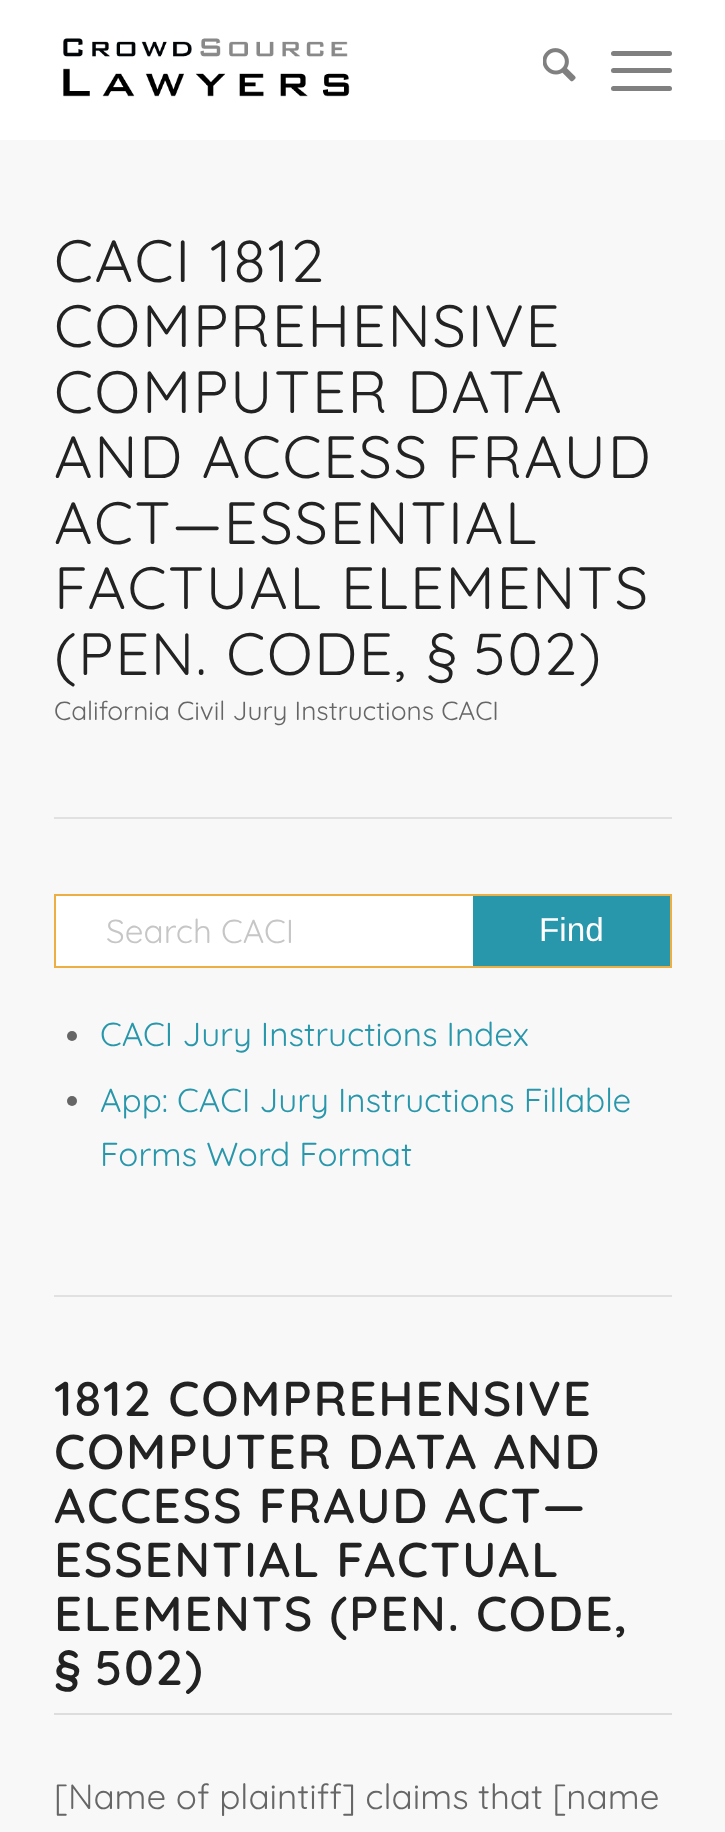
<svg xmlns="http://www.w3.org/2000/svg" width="725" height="1832">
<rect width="100%" height="100%" fill="#f8f8f8"/>
<rect width="725" height="140" fill="#fff"/>
<image x="63" y="38" width="287" height="59" href="media/1.png"/>
<image x="543" y="48" width="33" height="34" href="media/2.png"/>
<rect x="611" y="68" width="61" height="5" rx="2.5" fill="#808080"/>
<rect x="611" y="51" width="61" height="5" rx="2.5" fill="#808080"/>
<rect x="611" y="86" width="61" height="5" rx="2.5" fill="#808080"/>
<text x="54" y="282" style="font-family:Quicksand;font-size:59.5px;letter-spacing:1.75px;fill:#222">CACI 1812</text>
<text x="54" y="347" style="font-family:Quicksand;font-size:59.5px;letter-spacing:1.75px;fill:#222">COMPREHENSIVE</text>
<text x="54" y="413" style="font-family:Quicksand;font-size:59.5px;letter-spacing:1.75px;fill:#222">COMPUTER DATA</text>
<text x="54" y="478" style="font-family:Quicksand;font-size:59.5px;letter-spacing:1.75px;fill:#222">AND ACCESS FRAUD</text>
<text x="54" y="544" style="font-family:Quicksand;font-size:59.5px;letter-spacing:1.75px;fill:#222">ACT—ESSENTIAL</text>
<text x="54" y="609" style="font-family:Quicksand;font-size:59.5px;letter-spacing:1.75px;fill:#222">FACTUAL ELEMENTS</text>
<text x="54" y="675" style="font-family:Quicksand;font-size:59.5px;letter-spacing:1.75px;fill:#222">(PEN. CODE, § 502)</text>
<text x="54" y="720" style="font-family:Quicksand;font-size:26.25px;fill:#666">California Civil Jury Instructions CACI</text>
<rect x="54" y="817" width="618" height="2" fill="#e1e1e1"/>
<rect x="54" y="894" width="618" height="74" fill="#edae44"/>
<rect x="56" y="896" width="417" height="70" fill="#fff"/>
<text x="106" y="943" style="font-family:Quicksand;font-size:33.25px;fill:#c6c6c6">Search CACI</text>
<rect x="473" y="896" width="197" height="70" fill="#2997ab"/>
<text x="539" y="941" style="font-family:Liberation Sans;font-size:33.25px;fill:#fff">Find</text>
<circle cx="72" cy="1036" r="5" fill="#666"/>
<text x="100" y="1046" style="font-family:Quicksand;font-size:33.25px;fill:#2997ab">CACI Jury Instructions Index</text>
<circle cx="72" cy="1101" r="5" fill="#666"/>
<text x="100" y="1112" style="font-family:Quicksand;font-size:33.25px;fill:#2997ab">App: CACI Jury Instructions Fillable</text>
<text x="100" y="1166" style="font-family:Quicksand;font-size:33.25px;fill:#2997ab">Forms Word Format</text>
<rect x="54" y="1295" width="618" height="2" fill="#e1e1e1"/>
<text x="54" y="1416" style="font-family:Quicksand;font-size:49px;font-weight:600;letter-spacing:1.75px;fill:#222">1812 COMPREHENSIVE</text>
<text x="54" y="1469" style="font-family:Quicksand;font-size:49px;font-weight:600;letter-spacing:1.75px;fill:#222">COMPUTER DATA AND</text>
<text x="54" y="1523" style="font-family:Quicksand;font-size:49px;font-weight:600;letter-spacing:1.75px;fill:#222">ACCESS FRAUD ACT—</text>
<text x="54" y="1577" style="font-family:Quicksand;font-size:49px;font-weight:600;letter-spacing:1.75px;fill:#222">ESSENTIAL FACTUAL</text>
<text x="54" y="1631" style="font-family:Quicksand;font-size:49px;font-weight:600;letter-spacing:1.75px;fill:#222">ELEMENTS (PEN. CODE,</text>
<text x="54" y="1685" style="font-family:Quicksand;font-size:49px;font-weight:600;letter-spacing:1.75px;fill:#222">§ 502)</text>
<rect x="54" y="1713" width="618" height="2" fill="#ddd"/>
<text x="54" y="1809" style="font-family:Quicksand;font-size:35px;fill:#666">[Name of plaintiff] claims that [name</text>
</svg>
